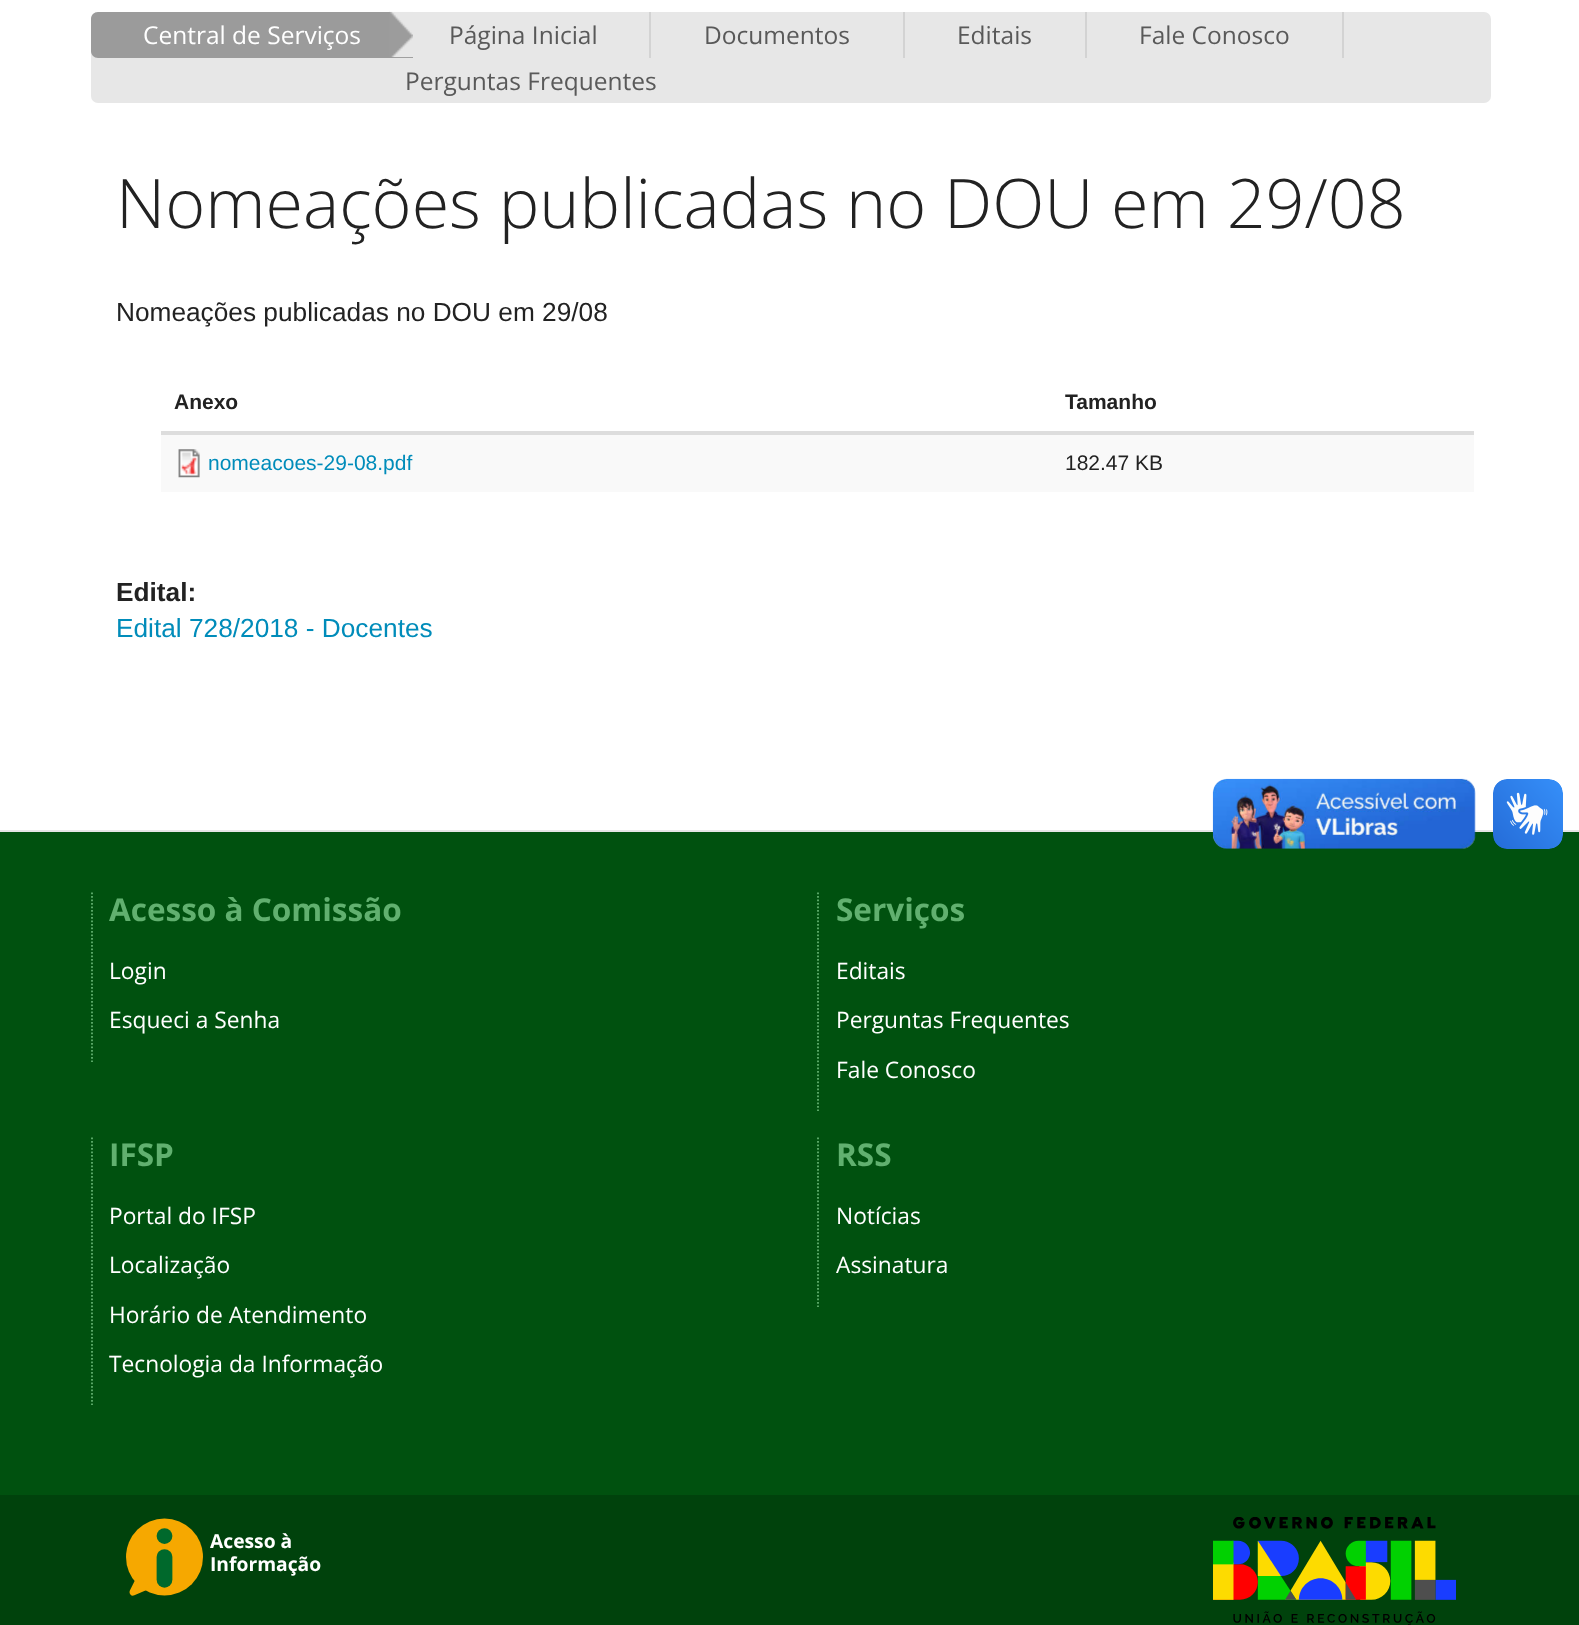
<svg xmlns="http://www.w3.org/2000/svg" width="1579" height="1625">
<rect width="100%" height="100%" fill="#fff"/>
<rect x="91" y="12" width="1400" height="91" rx="7" fill="#e7e7e7"/>
<path d="M98 12h315v46h-315c-4 0-7-3-7-7v-32c0-4 3-7 7-7z" fill="#9b9b9b"/>
<image x="389" y="11" width="24" height="47" href="media/1.png"/>
<text x="143" y="44" style="font-family:Open Sans;font-size:24.5px;fill:#fff">Central de Serviços</text>
<rect x="649" y="12" width="2" height="46" fill="#d3d3d3"/>
<text x="449" y="44" style="font-family:Open Sans;font-size:24.5px;fill:#595959">Página Inicial</text>
<rect x="903" y="12" width="2" height="46" fill="#d3d3d3"/>
<text x="704" y="44" style="font-family:Open Sans;font-size:24.5px;fill:#595959">Documentos</text>
<rect x="1085" y="12" width="2" height="46" fill="#d3d3d3"/>
<text x="957" y="44" style="font-family:Open Sans;font-size:24.5px;fill:#595959">Editais</text>
<rect x="1342" y="12" width="2" height="46" fill="#d3d3d3"/>
<text x="1139" y="44" style="font-family:Open Sans;font-size:24.5px;fill:#595959">Fale Conosco</text>
<text x="405" y="90" style="font-family:Open Sans;font-size:24.5px;fill:#595959">Perguntas Frequentes</text>
<text x="116" y="228" style="font-family:Open Sans;font-size:68.25px;font-weight:300;fill:#222">Nomeações publicadas no DOU em 29/08</text>
<text x="116" y="321" style="font-family:Liberation Sans;font-size:26.25px;fill:#222">Nomeações publicadas no DOU em 29/08</text>
<text x="174" y="409" style="font-family:Liberation Sans;font-size:21px;font-weight:bold;fill:#222">Anexo</text>
<rect x="161" y="431" width="1313" height="4" fill="#ddd"/>
<text x="1065" y="409" style="font-family:Liberation Sans;font-size:21px;font-weight:bold;fill:#222">Tamanho</text>
<rect x="161" y="435" width="1313" height="57" fill="#f9f9f9"/>
<image x="178" y="449" width="22" height="29" href="media/2.png"/>
<text x="208" y="470" style="font-family:Liberation Sans;font-size:21px;fill:#008cba">nomeacoes-29-08.pdf</text>
<text x="1065" y="470" style="font-family:Liberation Sans;font-size:21px;fill:#222">182.47 KB</text>
<text x="116" y="601" style="font-family:Liberation Sans;font-size:26.25px;font-weight:bold;fill:#222">Edital:</text>
<text x="116" y="637" style="font-family:Liberation Sans;font-size:26.25px;fill:#008cba">Edital 728/2018 - Docentes</text>
<rect y="832" width="1579" height="663" fill="#00510f"/>
<rect y="830" width="1579" height="2" fill="#e5e5e5"/>
<image x="1212" y="778" width="264" height="71" href="media/3.png"/>
<image x="1493" y="779" width="70" height="70" href="media/4.png"/>
<path d="M92 892.5v169.5" fill="none" stroke="#61b06f" stroke-width="1.8" stroke-dasharray="1.75 1.75"/>
<text x="109" y="921" style="font-family:Open Sans;font-size:31.5px;font-weight:bold;fill:#61b06f">Acesso à Comissão</text>
<text x="109" y="979" style="font-family:Open Sans;font-size:22.75px;fill:#fff">Login</text>
<text x="109" y="1028" style="font-family:Open Sans;font-size:22.75px;fill:#fff">Esqueci a Senha</text>
<path d="M818 892.5v218.5" fill="none" stroke="#61b06f" stroke-width="1.8" stroke-dasharray="1.75 1.75"/>
<text x="836" y="921" style="font-family:Open Sans;font-size:31.5px;font-weight:bold;fill:#61b06f">Serviços</text>
<text x="836" y="979" style="font-family:Open Sans;font-size:22.75px;fill:#fff">Editais</text>
<text x="836" y="1028" style="font-family:Open Sans;font-size:22.75px;fill:#fff">Perguntas Frequentes</text>
<text x="836" y="1078" style="font-family:Open Sans;font-size:22.75px;fill:#fff">Fale Conosco</text>
<path d="M92 1137.5v267.5" fill="none" stroke="#61b06f" stroke-width="1.8" stroke-dasharray="1.75 1.75"/>
<text x="109" y="1166" style="font-family:Open Sans;font-size:31.5px;font-weight:bold;fill:#61b06f">IFSP</text>
<text x="109" y="1224" style="font-family:Open Sans;font-size:22.75px;fill:#fff">Portal do IFSP</text>
<text x="109" y="1273" style="font-family:Open Sans;font-size:22.75px;fill:#fff">Localização</text>
<text x="109" y="1323" style="font-family:Open Sans;font-size:22.75px;fill:#fff">Horário de Atendimento</text>
<text x="109" y="1372" style="font-family:Open Sans;font-size:22.75px;fill:#fff">Tecnologia da Informação</text>
<path d="M818 1137.5v169.5" fill="none" stroke="#61b06f" stroke-width="1.8" stroke-dasharray="1.75 1.75"/>
<text x="836" y="1166" style="font-family:Open Sans;font-size:31.5px;font-weight:bold;fill:#61b06f">RSS</text>
<text x="836" y="1224" style="font-family:Open Sans;font-size:22.75px;fill:#fff">Notícias</text>
<text x="836" y="1273" style="font-family:Open Sans;font-size:22.75px;fill:#fff">Assinatura</text>
<rect y="1495" width="1579" height="130" fill="#00420c"/>
<image x="126" y="1518" width="195" height="78" href="media/5.png"/>
<image x="1213" y="1517" width="243" height="108" href="media/6.png"/>
</svg>
